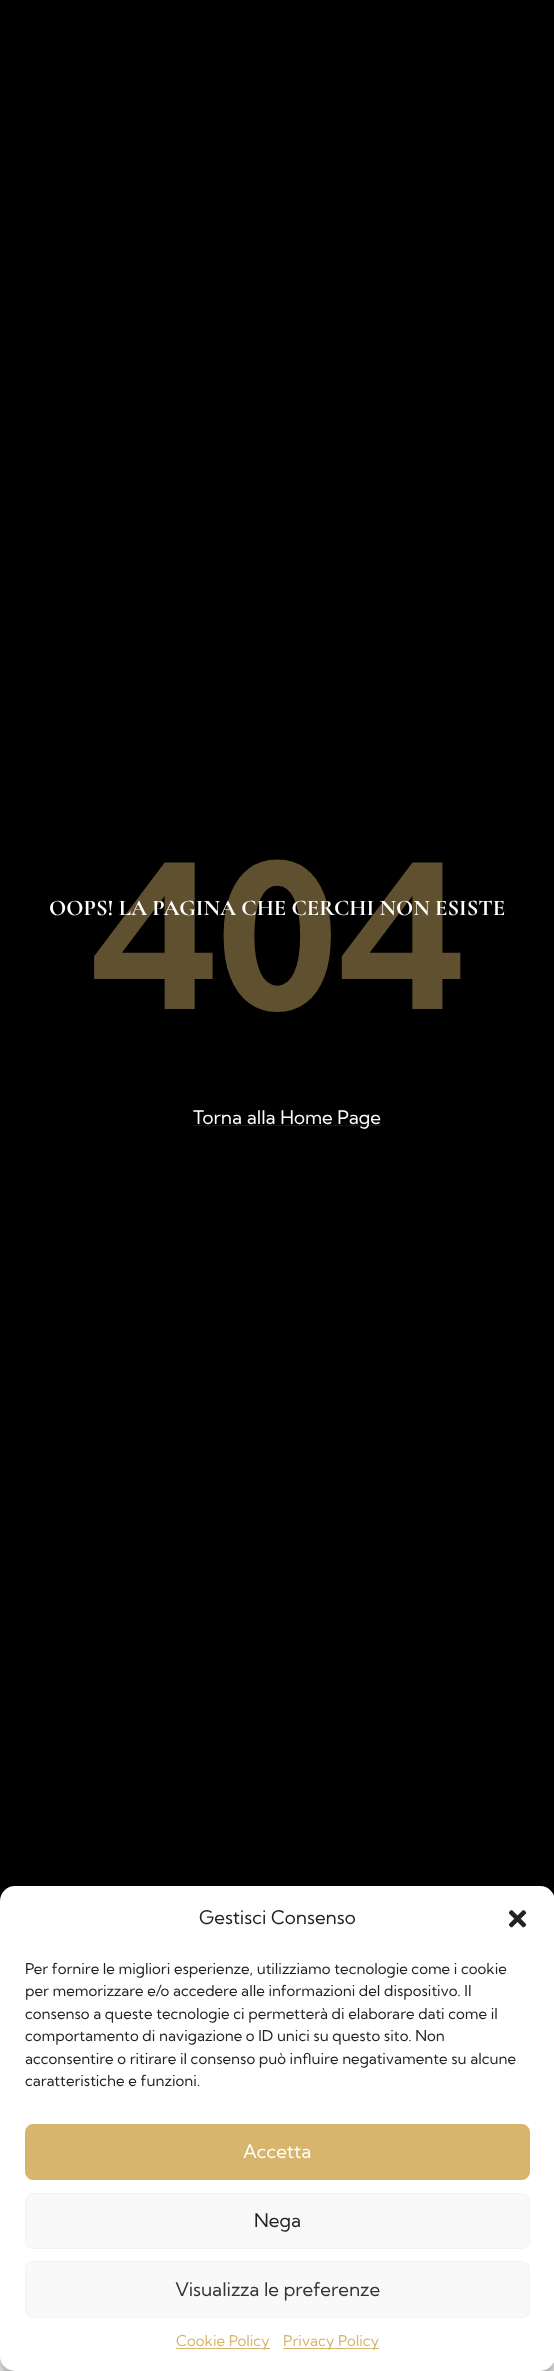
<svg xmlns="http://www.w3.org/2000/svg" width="554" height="2371">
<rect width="100%" height="100%" fill="#fff"/>
<rect width="554" height="1901" fill="#000"/>
<text x="90" y="1009" style="font-family:Kumbh Sans;font-size:200px;font-weight:bold;fill:#5f5030">404</text>
<text x="49" y="915" style="font-family:Cormorant Garamond;font-size:22.5px;font-weight:bold;fill:#fff">OOPS! LA PAGINA CHE CERCHI NON ESISTE</text>
<rect x="193" y="1125" width="188" height="1" fill="#1a1a1a"/>
<text x="193" y="1124" style="font-family:Kumbh Sans;font-size:18.75px;fill:#fff">Torna alla Home Page</text>
<rect y="1894" width="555" height="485" rx="15" fill="#0000003b" filter="blur(4px)"/>
<rect y="1899" width="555" height="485" rx="15" fill="#00000030" filter="blur(12.5px)"/>
<rect y="1886" width="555" height="485" rx="15" fill="#fff"/>
<text x="199" y="1924" style="font-family:Kumbh Sans;font-size:18.75px;fill:#222">Gestisci Consenso</text>
<image x="508" y="1910" width="19" height="18" href="media/1.png"/>
<text x="25" y="1974" style="font-family:Kumbh Sans;font-size:15px;fill:#222">Per fornire le migliori esperienze, utilizziamo tecnologie come i cookie</text>
<text x="25" y="1996" style="font-family:Kumbh Sans;font-size:15px;fill:#222">per memorizzare e/o accedere alle informazioni del dispositivo. Il</text>
<text x="25" y="2019" style="font-family:Kumbh Sans;font-size:15px;fill:#222">consenso a queste tecnologie ci permetterà di elaborare dati come il</text>
<text x="25" y="2041" style="font-family:Kumbh Sans;font-size:15px;fill:#222">comportamento di navigazione o ID unici su questo sito. Non</text>
<text x="25" y="2064" style="font-family:Kumbh Sans;font-size:15px;fill:#222">acconsentire o ritirare il consenso può influire negativamente su alcune</text>
<text x="25" y="2086" style="font-family:Kumbh Sans;font-size:15px;fill:#222">caratteristiche e funzioni.</text>
<rect x="25.5" y="2124.5" width="504" height="55" rx="7.5" fill="#d7b56d" stroke="#d7b56d"/>
<text x="243" y="2158" style="font-family:Kumbh Sans;font-size:18.75px;fill:#fff">Accetta</text>
<rect x="25.5" y="2193.5" width="504" height="55" rx="7.5" fill="#f9f9f9" stroke="#f2f2f2"/>
<text x="254" y="2227" style="font-family:Kumbh Sans;font-size:18.75px;fill:#222">Nega</text>
<rect x="25.5" y="2261.5" width="504" height="56" rx="7.5" fill="#f9f9f9" stroke="#f2f2f2"/>
<text x="175" y="2296" style="font-family:Kumbh Sans;font-size:18.75px;fill:#333">Visualizza le preferenze</text>
<rect x="176" y="2348" width="94" height="1" fill="#d7b56d"/>
<text x="176" y="2346" style="font-family:Kumbh Sans;font-size:15px;fill:#d7b56d">Cookie Policy</text>
<rect x="283" y="2348" width="96" height="1" fill="#d7b56d"/>
<text x="283" y="2346" style="font-family:Kumbh Sans;font-size:15px;fill:#d7b56d">Privacy Policy</text>
</svg>
